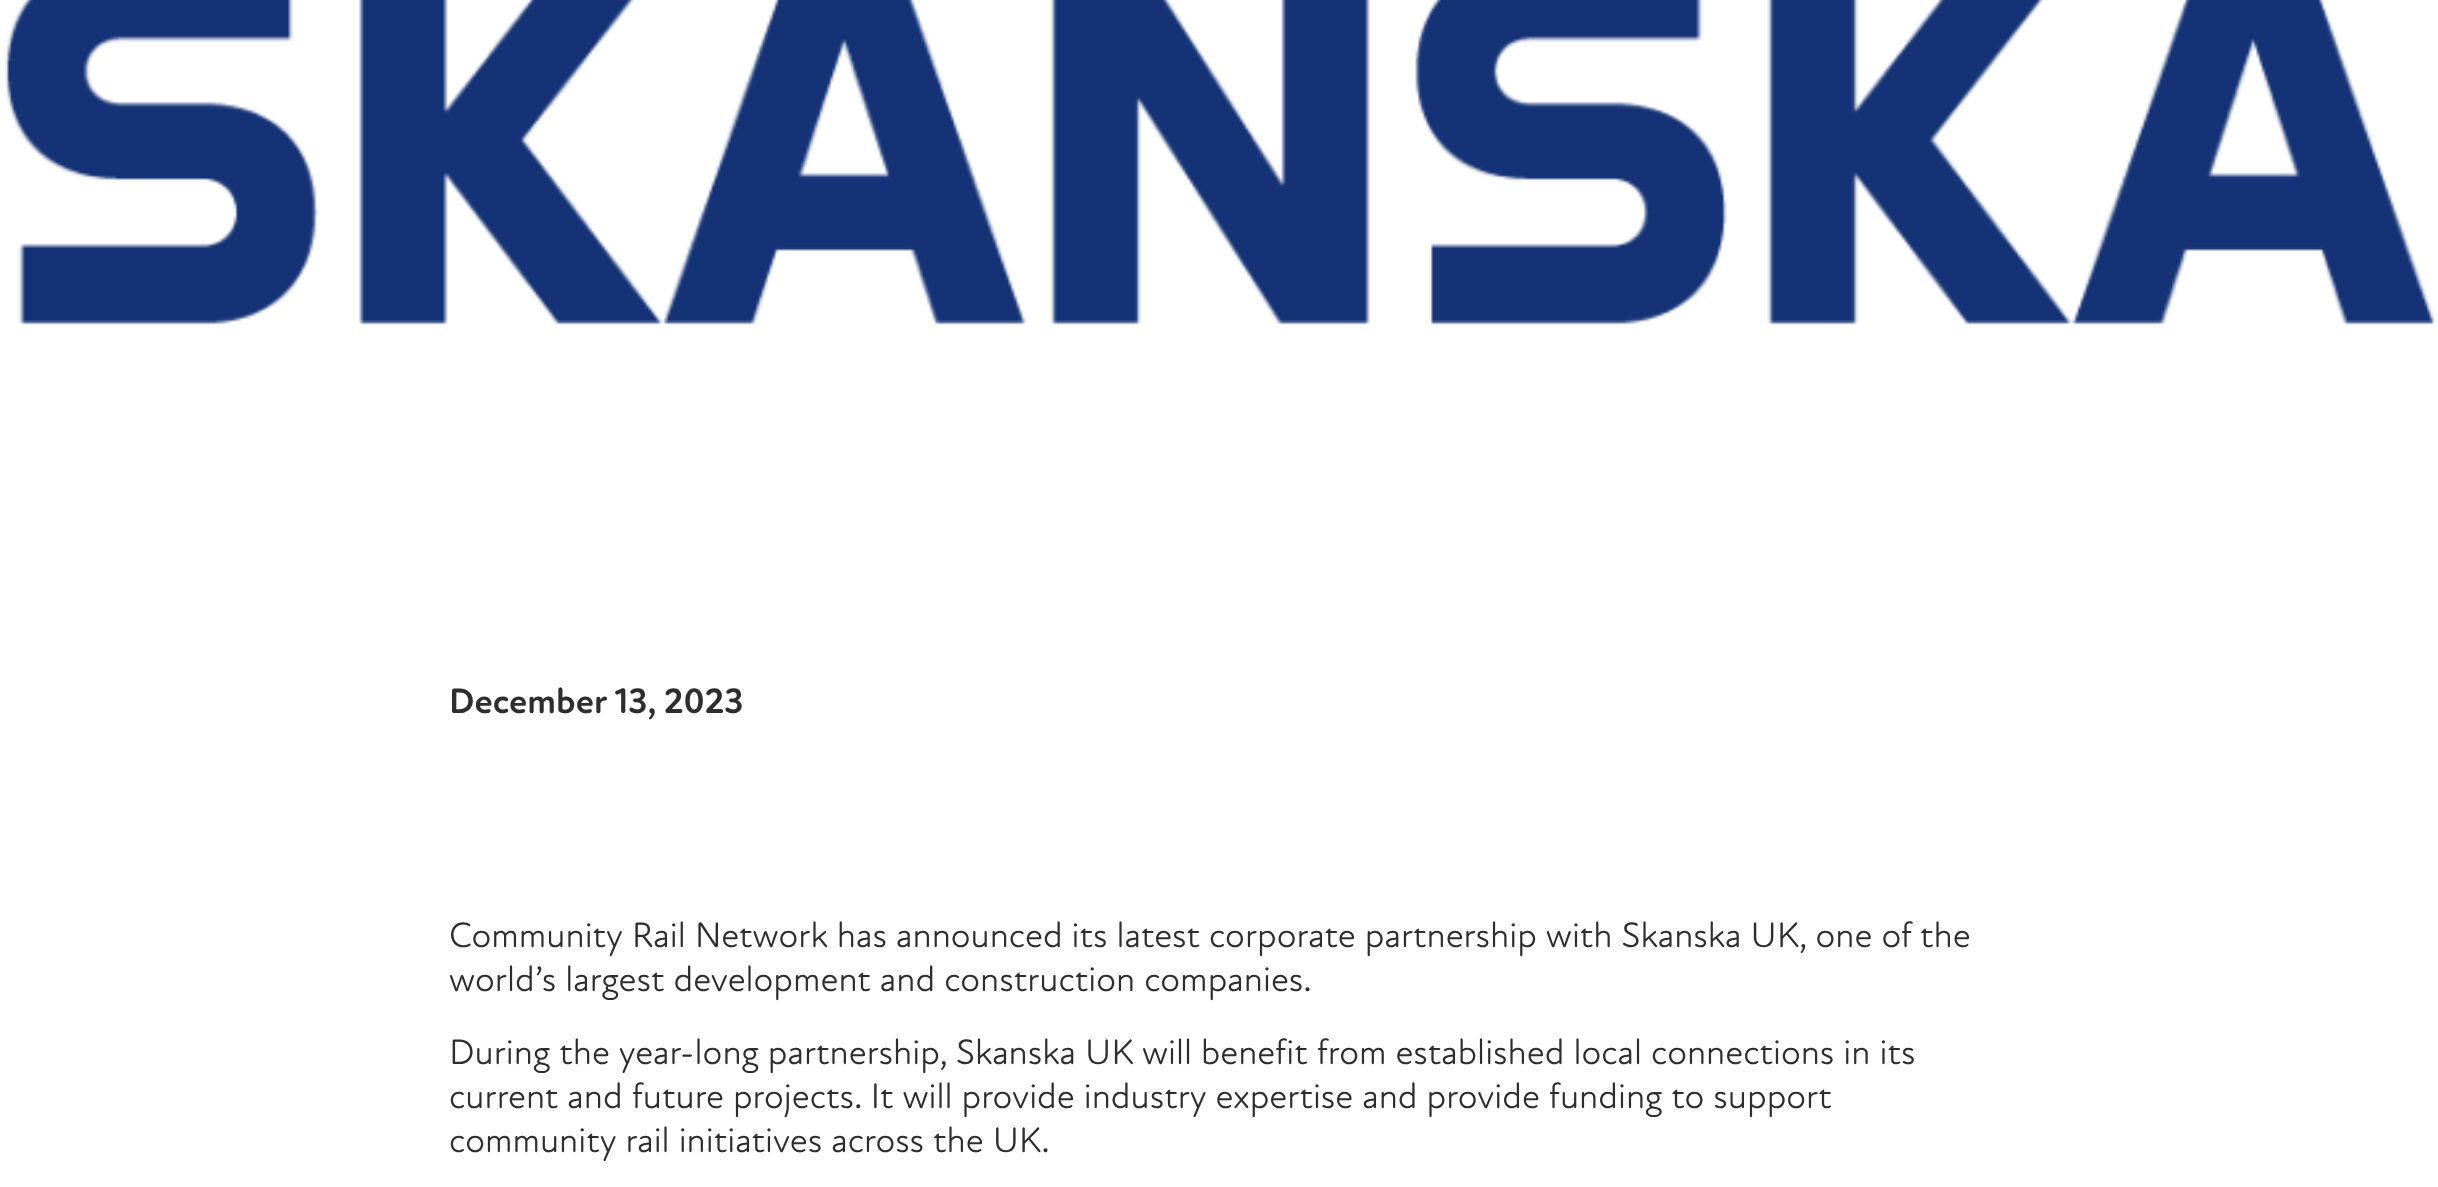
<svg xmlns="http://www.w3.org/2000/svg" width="2438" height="1187">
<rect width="100%" height="100%" fill="#fff"/>
<image x="4" y="0" width="2432" height="325" href="media/1.png"/>
<text x="449" y="713" style="font-family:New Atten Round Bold;font-size:36px;font-weight:bold;fill:#2e2d2f">December 13, 2023</text>
<text x="449" y="947" style="font-family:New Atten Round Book;font-size:36px;fill:#2e2d2f">Community Rail Network has announced its latest corporate partnership with Skanska UK, one of the</text>
<text x="449" y="991" style="font-family:New Atten Round Book;font-size:36px;fill:#2e2d2f">world’s largest development and construction companies.</text>
<text x="449" y="1064" style="font-family:New Atten Round Book;font-size:36px;fill:#2e2d2f">During the year-long partnership, Skanska UK will benefit from established local connections in its</text>
<text x="449" y="1108" style="font-family:New Atten Round Book;font-size:36px;fill:#2e2d2f">current and future projects. It will provide industry expertise and provide funding to support</text>
<text x="449" y="1152" style="font-family:New Atten Round Book;font-size:36px;fill:#2e2d2f">community rail initiatives across the UK.</text>
</svg>
